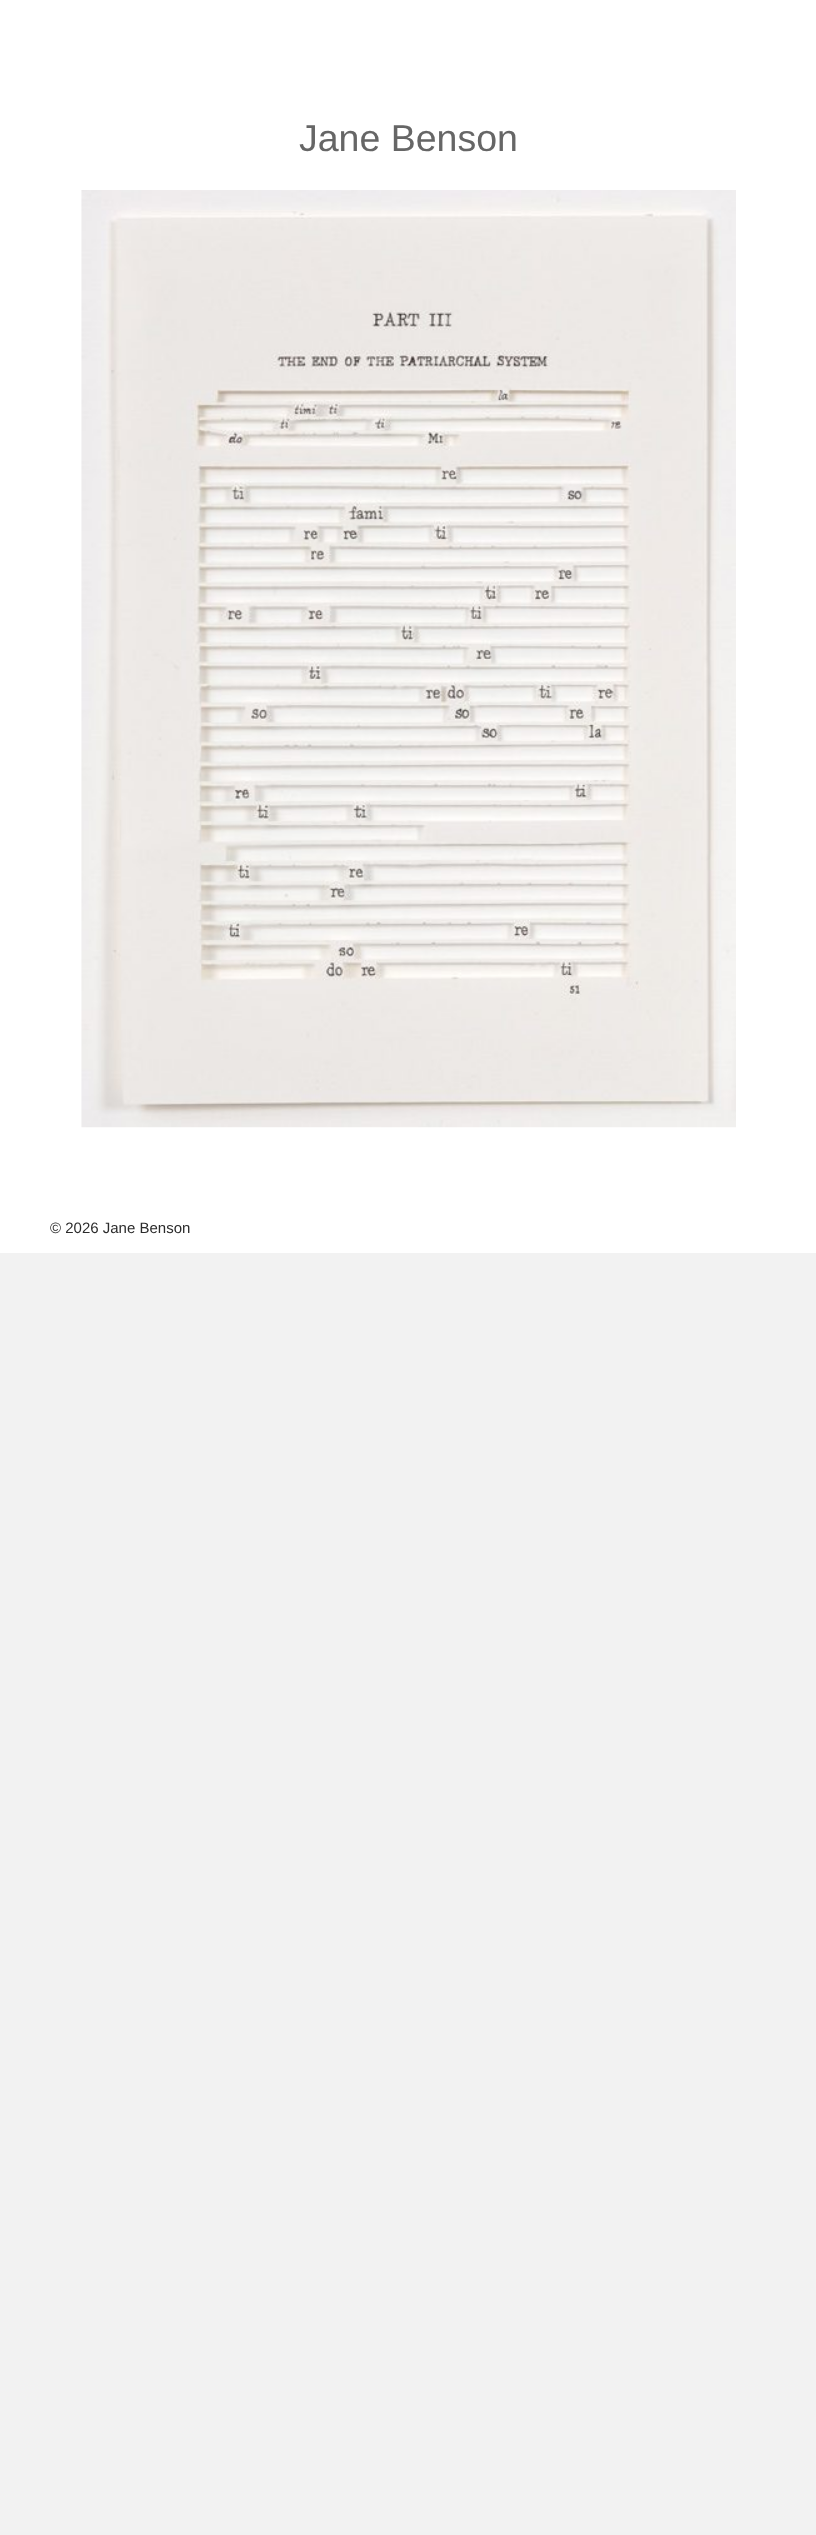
<svg xmlns="http://www.w3.org/2000/svg" width="816" height="2535">
<rect width="100%" height="100%" fill="#f2f2f2"/>
<rect width="816" height="1253" fill="#fff"/>
<text x="299" y="151" style="font-family:Liberation Sans;font-size:37.5px;fill:#666">Jane Benson</text>
<image x="81" y="190" width="655" height="938" href="media/1.png"/>
<text x="50" y="1233" style="font-family:Liberation Sans;font-size:15px;fill:#2b2b2b">© 2026 Jane Benson</text>
</svg>
